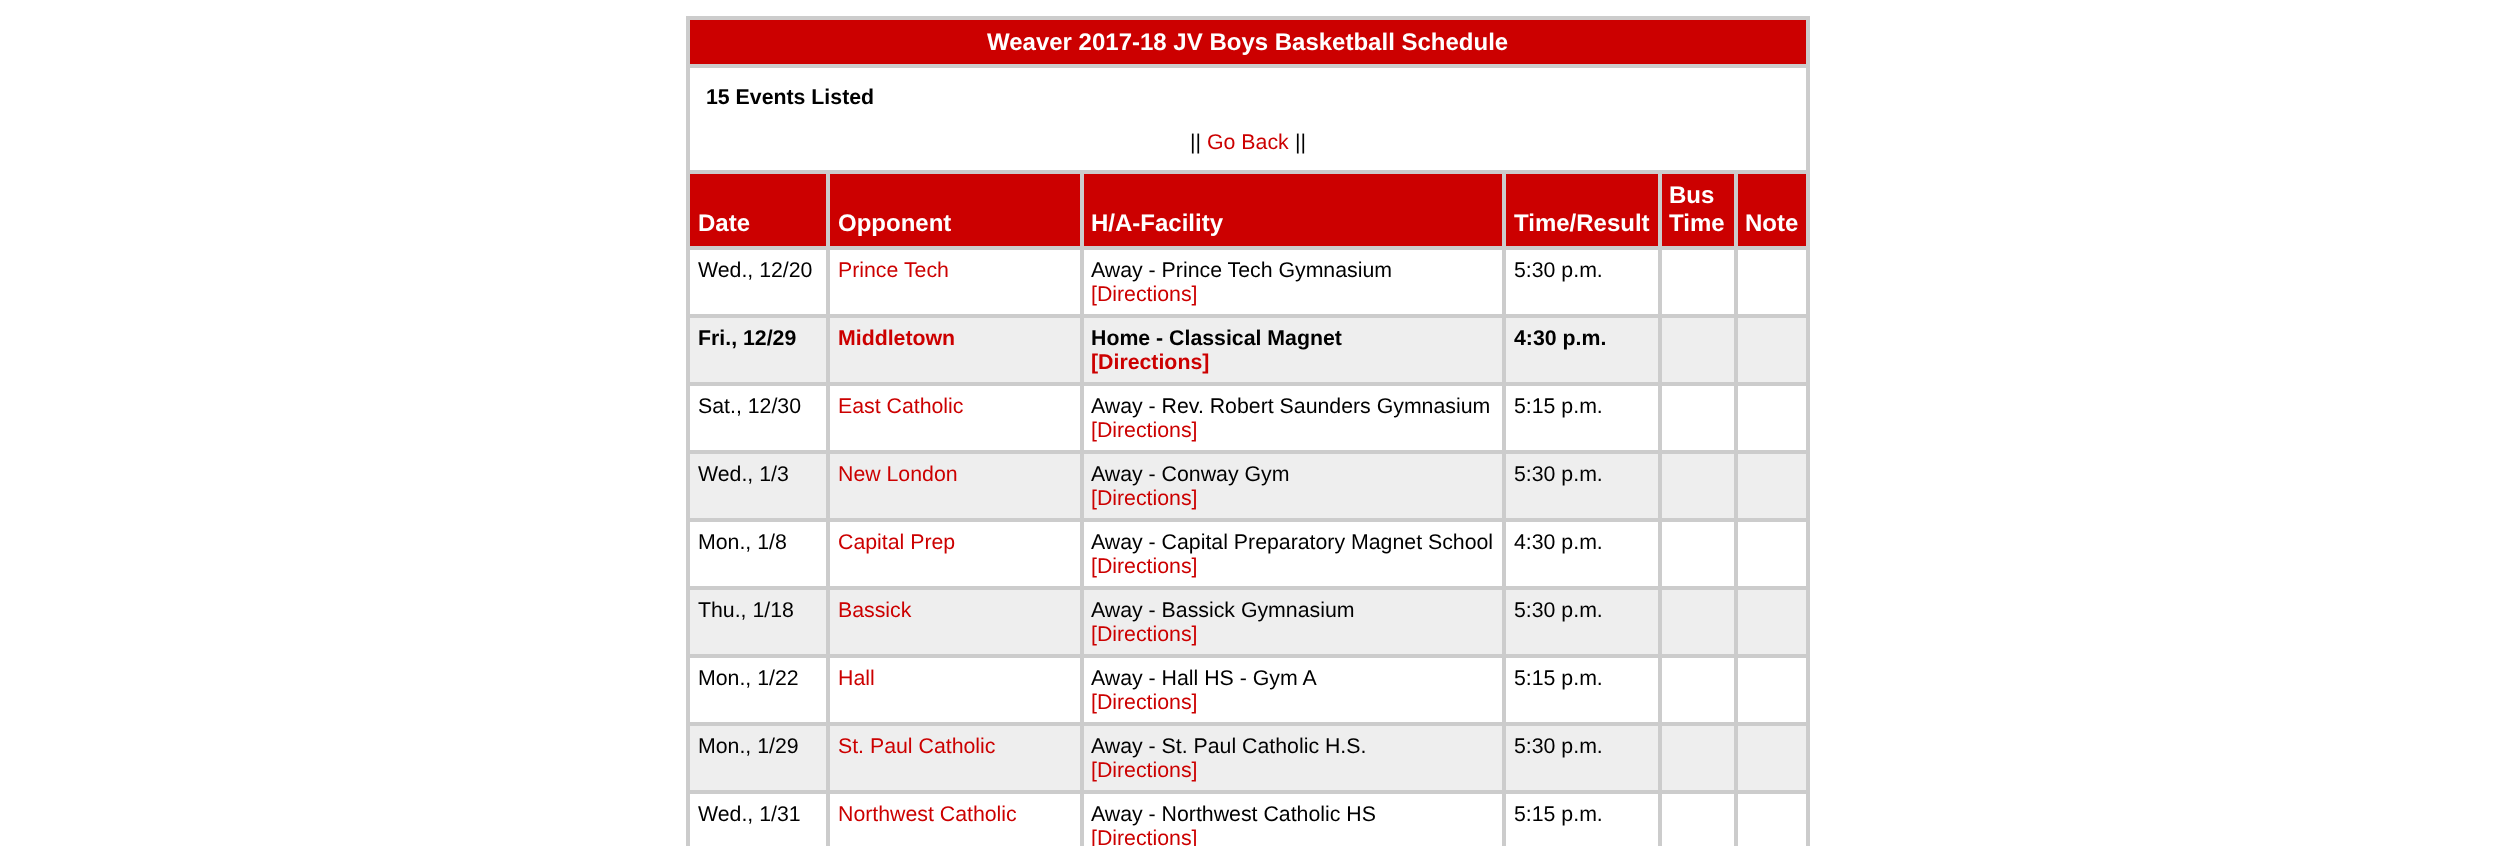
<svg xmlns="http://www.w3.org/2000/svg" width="2496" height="846">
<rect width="100%" height="100%" fill="#fff"/>
<rect x="686" y="16" width="1124" height="830" fill="#ccc"/>
<rect x="690" y="20" width="1116" height="44" fill="#c00"/>
<text x="987" y="50" style="font-family:Liberation Sans;font-size:24px;font-weight:bold;fill:#fff">Weaver 2017-18 JV Boys Basketball Schedule</text>
<rect x="690" y="68" width="1116" height="102" fill="#fff"/>
<text x="706" y="104" style="font-family:Liberation Sans;font-size:21.3px;font-weight:bold;fill:#000">15 Events Listed</text>
<text x="1190" y="149" style="font-family:Liberation Sans;font-size:21.3px;fill:#000">||</text>
<text x="1207" y="149" style="font-family:Liberation Sans;font-size:21.3px;fill:#c00">Go Back</text>
<text x="1295" y="149" style="font-family:Liberation Sans;font-size:21.3px;fill:#000">||</text>
<rect x="690" y="174" width="136" height="72" fill="#c00"/>
<text x="698" y="231" style="font-family:Liberation Sans;font-size:24px;font-weight:bold;fill:#fff">Date</text>
<rect x="830" y="174" width="250" height="72" fill="#c00"/>
<text x="838" y="231" style="font-family:Liberation Sans;font-size:24px;font-weight:bold;fill:#fff">Opponent</text>
<rect x="1084" y="174" width="418" height="72" fill="#c00"/>
<text x="1091" y="231" style="font-family:Liberation Sans;font-size:24px;font-weight:bold;fill:#fff">H/A-Facility</text>
<rect x="1506" y="174" width="152" height="72" fill="#c00"/>
<text x="1514" y="231" style="font-family:Liberation Sans;font-size:24px;font-weight:bold;fill:#fff">Time/Result</text>
<rect x="1662" y="174" width="72" height="72" fill="#c00"/>
<text x="1669" y="203" style="font-family:Liberation Sans;font-size:24px;font-weight:bold;fill:#fff">Bus</text>
<text x="1669" y="231" style="font-family:Liberation Sans;font-size:24px;font-weight:bold;fill:#fff">Time</text>
<rect x="1738" y="174" width="68" height="72" fill="#c00"/>
<text x="1745" y="231" style="font-family:Liberation Sans;font-size:24px;font-weight:bold;fill:#fff">Note</text>
<rect x="690" y="250" width="1116" height="64" fill="#fff"/>
<rect x="689" y="249" width="138" height="66" fill="none" stroke="#ccc" stroke-width="2"/>
<text x="698" y="277" style="font-family:Liberation Sans;font-size:21.3px;fill:#000">Wed., 12/20</text>
<rect x="829" y="249" width="252" height="66" fill="none" stroke="#ccc" stroke-width="2"/>
<text x="838" y="277" style="font-family:Liberation Sans;font-size:21.3px;fill:#c00">Prince Tech</text>
<rect x="1083" y="249" width="420" height="66" fill="none" stroke="#ccc" stroke-width="2"/>
<text x="1091" y="277" style="font-family:Liberation Sans;font-size:21.3px;fill:#000">Away - Prince Tech Gymnasium</text>
<text x="1091" y="301" style="font-family:Liberation Sans;font-size:21.3px;fill:#c00">[Directions]</text>
<rect x="1505" y="249" width="154" height="66" fill="none" stroke="#ccc" stroke-width="2"/>
<text x="1514" y="277" style="font-family:Liberation Sans;font-size:21.3px;fill:#000">5:30 p.m.</text>
<rect x="1661" y="249" width="74" height="66" fill="none" stroke="#ccc" stroke-width="2"/>
<rect x="1737" y="249" width="70" height="66" fill="none" stroke="#ccc" stroke-width="2"/>
<rect x="690" y="318" width="1116" height="64" fill="#eee"/>
<rect x="689" y="317" width="138" height="66" fill="none" stroke="#ccc" stroke-width="2"/>
<text x="698" y="345" style="font-family:Liberation Sans;font-size:21.3px;font-weight:bold;fill:#000">Fri., 12/29</text>
<rect x="829" y="317" width="252" height="66" fill="none" stroke="#ccc" stroke-width="2"/>
<text x="838" y="345" style="font-family:Liberation Sans;font-size:21.3px;font-weight:bold;fill:#c00">Middletown</text>
<rect x="1083" y="317" width="420" height="66" fill="none" stroke="#ccc" stroke-width="2"/>
<text x="1091" y="345" style="font-family:Liberation Sans;font-size:21.3px;font-weight:bold;fill:#000">Home - Classical Magnet</text>
<text x="1091" y="369" style="font-family:Liberation Sans;font-size:21.3px;font-weight:bold;fill:#c00">[Directions]</text>
<rect x="1505" y="317" width="154" height="66" fill="none" stroke="#ccc" stroke-width="2"/>
<text x="1514" y="345" style="font-family:Liberation Sans;font-size:21.3px;font-weight:bold;fill:#000">4:30 p.m.</text>
<rect x="1661" y="317" width="74" height="66" fill="none" stroke="#ccc" stroke-width="2"/>
<rect x="1737" y="317" width="70" height="66" fill="none" stroke="#ccc" stroke-width="2"/>
<rect x="690" y="386" width="1116" height="64" fill="#fff"/>
<rect x="689" y="385" width="138" height="66" fill="none" stroke="#ccc" stroke-width="2"/>
<text x="698" y="413" style="font-family:Liberation Sans;font-size:21.3px;fill:#000">Sat., 12/30</text>
<rect x="829" y="385" width="252" height="66" fill="none" stroke="#ccc" stroke-width="2"/>
<text x="838" y="413" style="font-family:Liberation Sans;font-size:21.3px;fill:#c00">East Catholic</text>
<rect x="1083" y="385" width="420" height="66" fill="none" stroke="#ccc" stroke-width="2"/>
<text x="1091" y="413" style="font-family:Liberation Sans;font-size:21.3px;fill:#000">Away - Rev. Robert Saunders Gymnasium</text>
<text x="1091" y="437" style="font-family:Liberation Sans;font-size:21.3px;fill:#c00">[Directions]</text>
<rect x="1505" y="385" width="154" height="66" fill="none" stroke="#ccc" stroke-width="2"/>
<text x="1514" y="413" style="font-family:Liberation Sans;font-size:21.3px;fill:#000">5:15 p.m.</text>
<rect x="1661" y="385" width="74" height="66" fill="none" stroke="#ccc" stroke-width="2"/>
<rect x="1737" y="385" width="70" height="66" fill="none" stroke="#ccc" stroke-width="2"/>
<rect x="690" y="454" width="1116" height="64" fill="#eee"/>
<rect x="689" y="453" width="138" height="66" fill="none" stroke="#ccc" stroke-width="2"/>
<text x="698" y="481" style="font-family:Liberation Sans;font-size:21.3px;fill:#000">Wed., 1/3</text>
<rect x="829" y="453" width="252" height="66" fill="none" stroke="#ccc" stroke-width="2"/>
<text x="838" y="481" style="font-family:Liberation Sans;font-size:21.3px;fill:#c00">New London</text>
<rect x="1083" y="453" width="420" height="66" fill="none" stroke="#ccc" stroke-width="2"/>
<text x="1091" y="481" style="font-family:Liberation Sans;font-size:21.3px;fill:#000">Away - Conway Gym</text>
<text x="1091" y="505" style="font-family:Liberation Sans;font-size:21.3px;fill:#c00">[Directions]</text>
<rect x="1505" y="453" width="154" height="66" fill="none" stroke="#ccc" stroke-width="2"/>
<text x="1514" y="481" style="font-family:Liberation Sans;font-size:21.3px;fill:#000">5:30 p.m.</text>
<rect x="1661" y="453" width="74" height="66" fill="none" stroke="#ccc" stroke-width="2"/>
<rect x="1737" y="453" width="70" height="66" fill="none" stroke="#ccc" stroke-width="2"/>
<rect x="690" y="522" width="1116" height="64" fill="#fff"/>
<rect x="689" y="521" width="138" height="66" fill="none" stroke="#ccc" stroke-width="2"/>
<text x="698" y="549" style="font-family:Liberation Sans;font-size:21.3px;fill:#000">Mon., 1/8</text>
<rect x="829" y="521" width="252" height="66" fill="none" stroke="#ccc" stroke-width="2"/>
<text x="838" y="549" style="font-family:Liberation Sans;font-size:21.3px;fill:#c00">Capital Prep</text>
<rect x="1083" y="521" width="420" height="66" fill="none" stroke="#ccc" stroke-width="2"/>
<text x="1091" y="549" style="font-family:Liberation Sans;font-size:21.3px;fill:#000">Away - Capital Preparatory Magnet School</text>
<text x="1091" y="573" style="font-family:Liberation Sans;font-size:21.3px;fill:#c00">[Directions]</text>
<rect x="1505" y="521" width="154" height="66" fill="none" stroke="#ccc" stroke-width="2"/>
<text x="1514" y="549" style="font-family:Liberation Sans;font-size:21.3px;fill:#000">4:30 p.m.</text>
<rect x="1661" y="521" width="74" height="66" fill="none" stroke="#ccc" stroke-width="2"/>
<rect x="1737" y="521" width="70" height="66" fill="none" stroke="#ccc" stroke-width="2"/>
<rect x="690" y="590" width="1116" height="64" fill="#eee"/>
<rect x="689" y="589" width="138" height="66" fill="none" stroke="#ccc" stroke-width="2"/>
<text x="698" y="617" style="font-family:Liberation Sans;font-size:21.3px;fill:#000">Thu., 1/18</text>
<rect x="829" y="589" width="252" height="66" fill="none" stroke="#ccc" stroke-width="2"/>
<text x="838" y="617" style="font-family:Liberation Sans;font-size:21.3px;fill:#c00">Bassick</text>
<rect x="1083" y="589" width="420" height="66" fill="none" stroke="#ccc" stroke-width="2"/>
<text x="1091" y="617" style="font-family:Liberation Sans;font-size:21.3px;fill:#000">Away - Bassick Gymnasium</text>
<text x="1091" y="641" style="font-family:Liberation Sans;font-size:21.3px;fill:#c00">[Directions]</text>
<rect x="1505" y="589" width="154" height="66" fill="none" stroke="#ccc" stroke-width="2"/>
<text x="1514" y="617" style="font-family:Liberation Sans;font-size:21.3px;fill:#000">5:30 p.m.</text>
<rect x="1661" y="589" width="74" height="66" fill="none" stroke="#ccc" stroke-width="2"/>
<rect x="1737" y="589" width="70" height="66" fill="none" stroke="#ccc" stroke-width="2"/>
<rect x="690" y="658" width="1116" height="64" fill="#fff"/>
<rect x="689" y="657" width="138" height="66" fill="none" stroke="#ccc" stroke-width="2"/>
<text x="698" y="685" style="font-family:Liberation Sans;font-size:21.3px;fill:#000">Mon., 1/22</text>
<rect x="829" y="657" width="252" height="66" fill="none" stroke="#ccc" stroke-width="2"/>
<text x="838" y="685" style="font-family:Liberation Sans;font-size:21.3px;fill:#c00">Hall</text>
<rect x="1083" y="657" width="420" height="66" fill="none" stroke="#ccc" stroke-width="2"/>
<text x="1091" y="685" style="font-family:Liberation Sans;font-size:21.3px;fill:#000">Away - Hall HS - Gym A</text>
<text x="1091" y="709" style="font-family:Liberation Sans;font-size:21.3px;fill:#c00">[Directions]</text>
<rect x="1505" y="657" width="154" height="66" fill="none" stroke="#ccc" stroke-width="2"/>
<text x="1514" y="685" style="font-family:Liberation Sans;font-size:21.3px;fill:#000">5:15 p.m.</text>
<rect x="1661" y="657" width="74" height="66" fill="none" stroke="#ccc" stroke-width="2"/>
<rect x="1737" y="657" width="70" height="66" fill="none" stroke="#ccc" stroke-width="2"/>
<rect x="690" y="726" width="1116" height="64" fill="#eee"/>
<rect x="689" y="725" width="138" height="66" fill="none" stroke="#ccc" stroke-width="2"/>
<text x="698" y="753" style="font-family:Liberation Sans;font-size:21.3px;fill:#000">Mon., 1/29</text>
<rect x="829" y="725" width="252" height="66" fill="none" stroke="#ccc" stroke-width="2"/>
<text x="838" y="753" style="font-family:Liberation Sans;font-size:21.3px;fill:#c00">St. Paul Catholic</text>
<rect x="1083" y="725" width="420" height="66" fill="none" stroke="#ccc" stroke-width="2"/>
<text x="1091" y="753" style="font-family:Liberation Sans;font-size:21.3px;fill:#000">Away - St. Paul Catholic H.S.</text>
<text x="1091" y="777" style="font-family:Liberation Sans;font-size:21.3px;fill:#c00">[Directions]</text>
<rect x="1505" y="725" width="154" height="66" fill="none" stroke="#ccc" stroke-width="2"/>
<text x="1514" y="753" style="font-family:Liberation Sans;font-size:21.3px;fill:#000">5:30 p.m.</text>
<rect x="1661" y="725" width="74" height="66" fill="none" stroke="#ccc" stroke-width="2"/>
<rect x="1737" y="725" width="70" height="66" fill="none" stroke="#ccc" stroke-width="2"/>
<rect x="690" y="794" width="1116" height="52" fill="#fff"/>
<rect x="689" y="793" width="138" height="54" fill="none" stroke="#ccc" stroke-width="2"/>
<text x="698" y="821" style="font-family:Liberation Sans;font-size:21.3px;fill:#000">Wed., 1/31</text>
<rect x="829" y="793" width="252" height="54" fill="none" stroke="#ccc" stroke-width="2"/>
<text x="838" y="821" style="font-family:Liberation Sans;font-size:21.3px;fill:#c00">Northwest Catholic</text>
<rect x="1083" y="793" width="420" height="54" fill="none" stroke="#ccc" stroke-width="2"/>
<text x="1091" y="821" style="font-family:Liberation Sans;font-size:21.3px;fill:#000">Away - Northwest Catholic HS</text>
<text x="1091" y="845" style="font-family:Liberation Sans;font-size:21.3px;fill:#c00">[Directions]</text>
<rect x="1505" y="793" width="154" height="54" fill="none" stroke="#ccc" stroke-width="2"/>
<text x="1514" y="821" style="font-family:Liberation Sans;font-size:21.3px;fill:#000">5:15 p.m.</text>
<rect x="1661" y="793" width="74" height="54" fill="none" stroke="#ccc" stroke-width="2"/>
<rect x="1737" y="793" width="70" height="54" fill="none" stroke="#ccc" stroke-width="2"/>
</svg>
